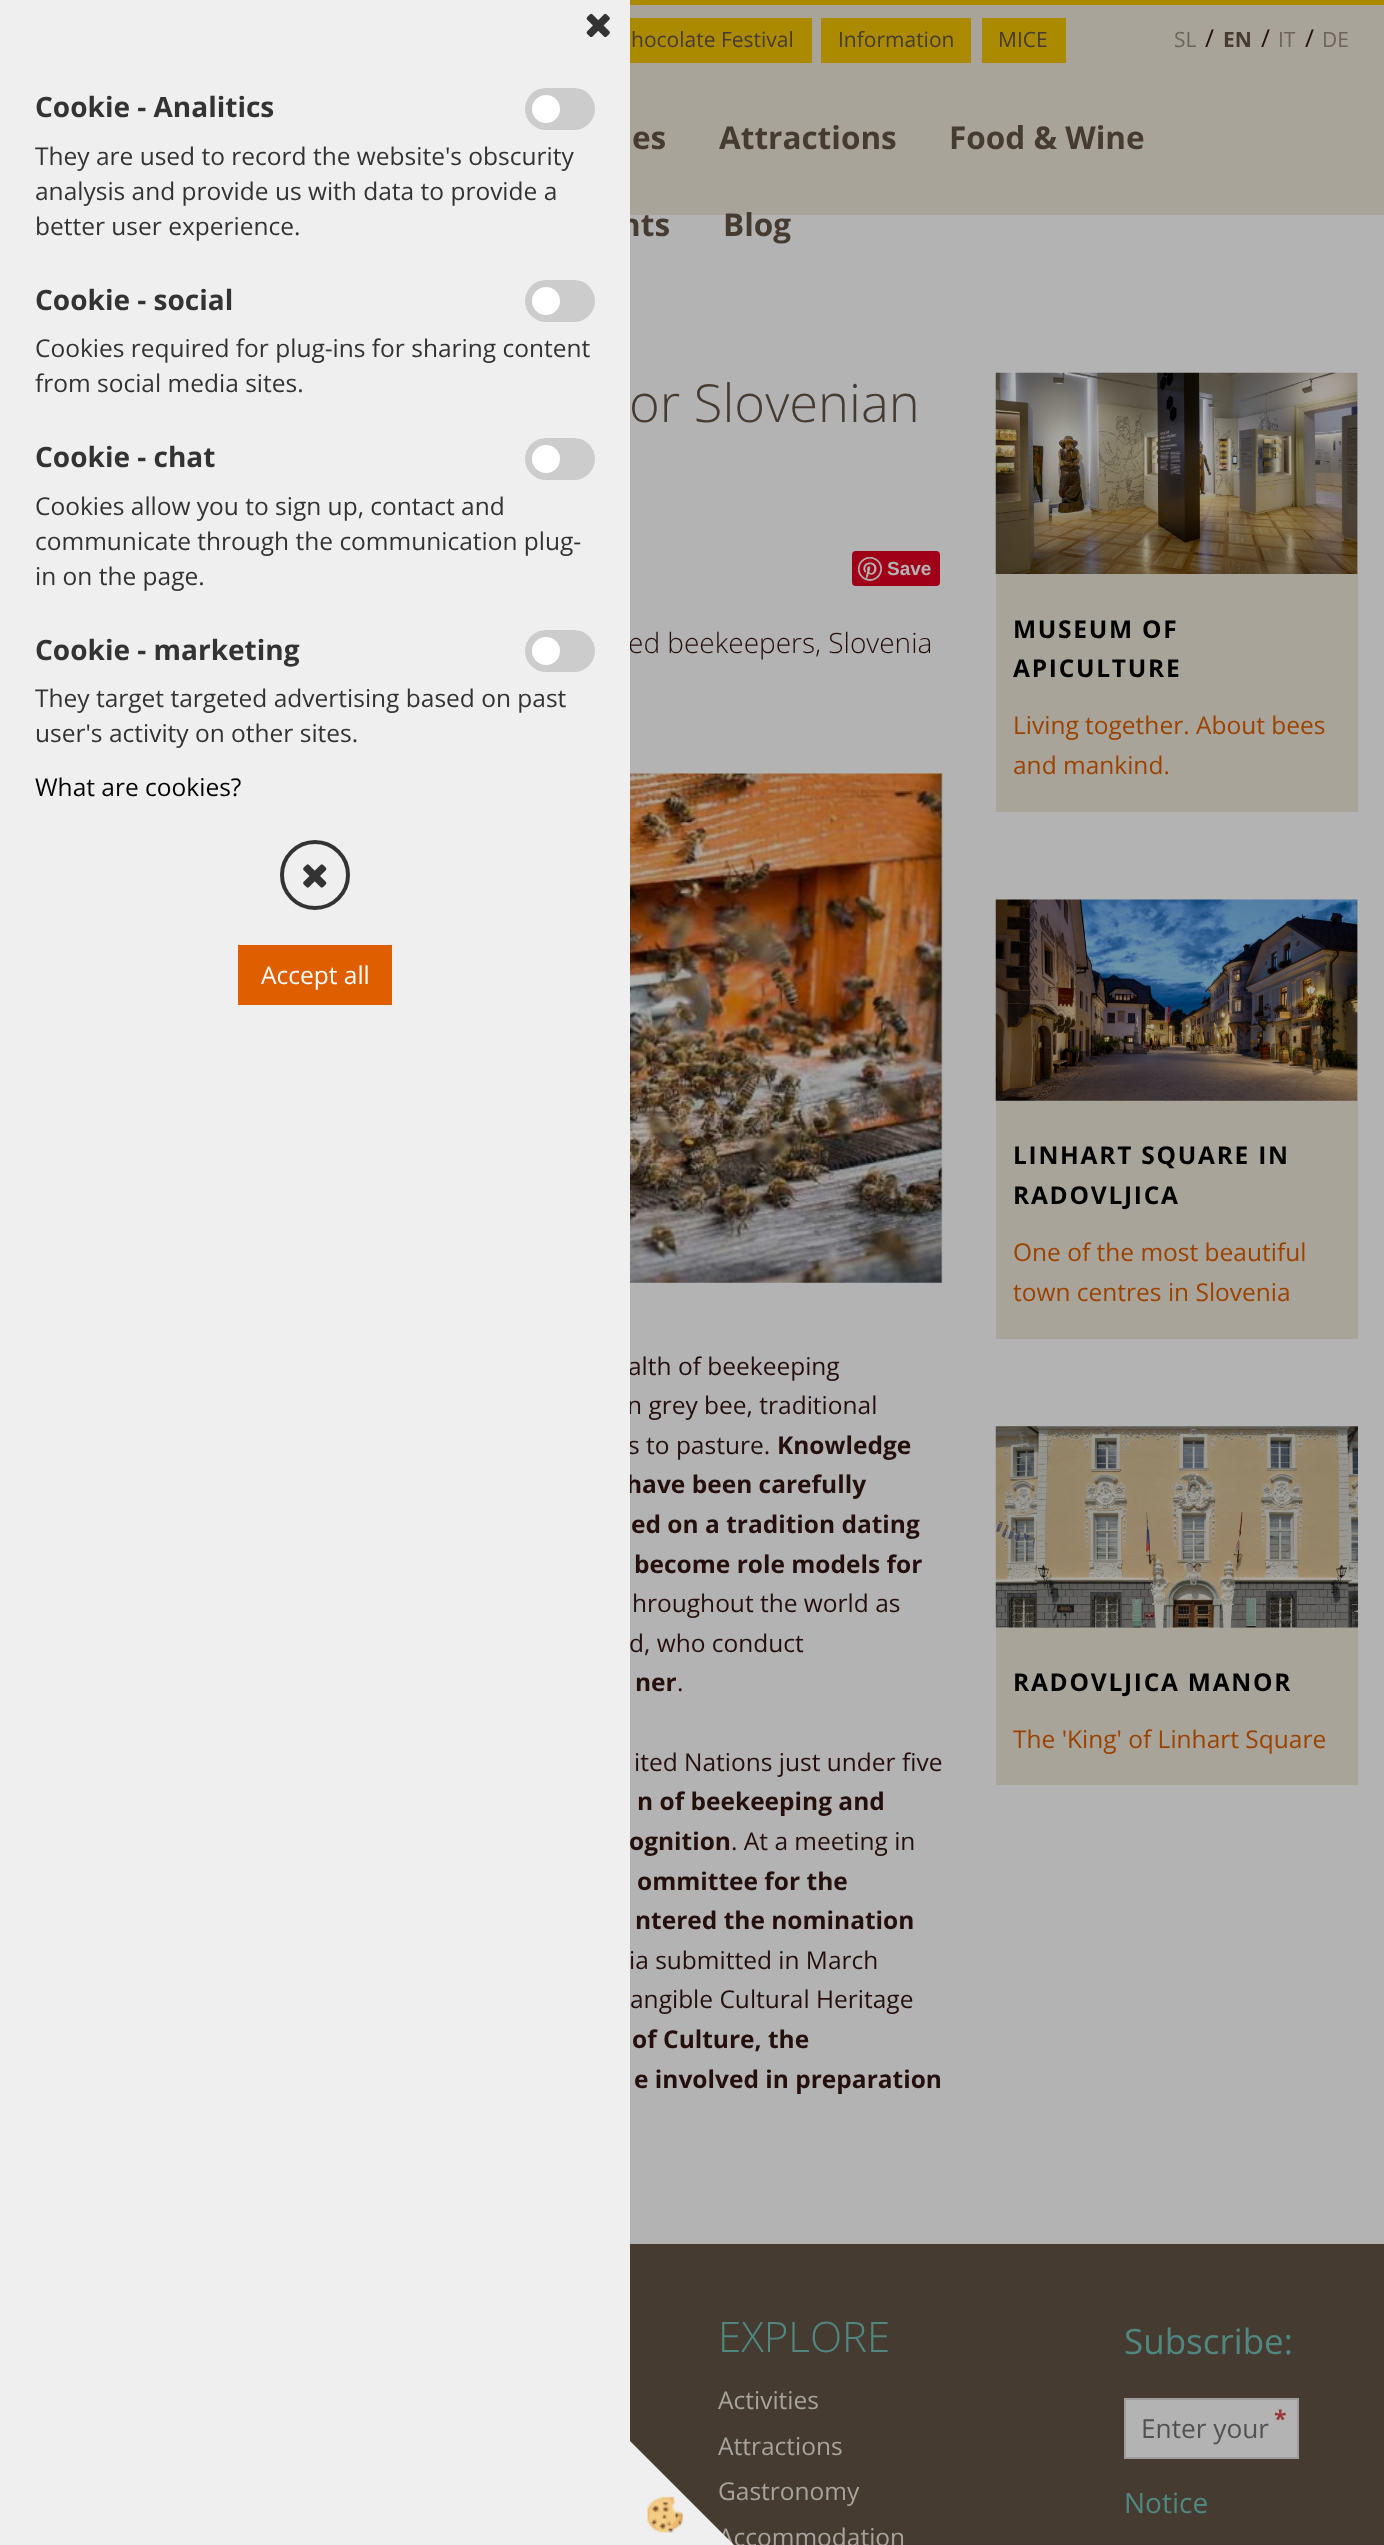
<svg xmlns="http://www.w3.org/2000/svg" width="1384" height="2545">
<rect width="100%" height="100%" fill="#b3b3b3"/>
<text x="620" y="236" style="font-family:Open Sans;font-size:31.5px;font-weight:bold;fill:#453b31">nts</text>
<text x="628" y="653" style="font-family:Open Sans;font-size:28px;font-weight:300;fill:#250f0d">ed beekeepers, Slovenia</text>
<text x="628" y="1375" style="font-family:Open Sans;font-size:24.5px;fill:#250f0d">alth of beekeeping</text>
<text x="627" y="1414" style="font-family:Open Sans;font-size:24.5px;fill:#250f0d">n grey bee, traditional</text>
<text x="628" y="1454" style="font-family:Open Sans;font-size:24.5px;fill:#250f0d">s to pasture.</text>
<text x="626" y="1493" style="font-family:Open Sans;font-size:24.5px;font-weight:bold;fill:#250f0d">have been carefully</text>
<text x="629" y="1850" style="font-family:Open Sans;font-size:24.5px;font-weight:bold;fill:#250f0d">ognition</text>
<rect width="630" height="2545" fill="#efefef"/>
<image x="586" y="13" width="24" height="25" href="media/1.png"/>
<text x="35" y="117" style="font-family:Open Sans;font-size:28px;font-weight:bold;fill:#333">Cookie - Analitics</text>
<rect x="525" y="88" width="70" height="42" rx="21" fill="#ccc"/>
<circle cx="546" cy="109" r="14" fill="#fff"/>
<text x="35" y="165" style="font-family:Open Sans;font-size:24.5px;fill:#333">They are used to record the website's obscurity</text>
<text x="35" y="200" style="font-family:Open Sans;font-size:24.5px;fill:#333">analysis and provide us with data to provide a</text>
<text x="35" y="235" style="font-family:Open Sans;font-size:24.5px;fill:#333">better user experience.</text>
<text x="35" y="310" style="font-family:Open Sans;font-size:28px;font-weight:bold;fill:#333">Cookie - social</text>
<rect x="525" y="280" width="70" height="42" rx="21" fill="#ccc"/>
<circle cx="546" cy="301" r="14" fill="#fff"/>
<text x="35" y="357" style="font-family:Open Sans;font-size:24.5px;fill:#333">Cookies required for plug-ins for sharing content</text>
<text x="35" y="392" style="font-family:Open Sans;font-size:24.5px;fill:#333">from social media sites.</text>
<text x="35" y="467" style="font-family:Open Sans;font-size:28px;font-weight:bold;fill:#333">Cookie - chat</text>
<rect x="525" y="438" width="70" height="42" rx="21" fill="#ccc"/>
<circle cx="546" cy="459" r="14" fill="#fff"/>
<text x="35" y="515" style="font-family:Open Sans;font-size:24.5px;fill:#333">Cookies allow you to sign up, contact and</text>
<text x="35" y="550" style="font-family:Open Sans;font-size:24.5px;fill:#333">communicate through the communication plug-</text>
<text x="35" y="585" style="font-family:Open Sans;font-size:24.5px;fill:#333">in on the page.</text>
<text x="35" y="660" style="font-family:Open Sans;font-size:28px;font-weight:bold;fill:#333">Cookie - marketing</text>
<rect x="525" y="630" width="70" height="42" rx="21" fill="#ccc"/>
<circle cx="546" cy="651" r="14" fill="#fff"/>
<text x="35" y="707" style="font-family:Open Sans;font-size:24.5px;fill:#333">They target targeted advertising based on past</text>
<text x="35" y="742" style="font-family:Open Sans;font-size:24.5px;fill:#333">user's activity on other sites.</text>
<text x="35" y="796" style="font-family:Open Sans;font-size:24.5px;fill:#000">What are cookies?</text>
<circle cx="315" cy="875" r="33" fill="none" stroke="#333" stroke-width="4"/>
<image x="303" y="864" width="24" height="24" href="media/2.png"/>
<rect x="238" y="945" width="154" height="60" fill="#df5e00"/>
<text x="261" y="984" style="font-family:Open Sans;font-size:24.5px;fill:#fff">Accept all</text>
<rect x="630" y="2244" width="754" height="301" fill="#453b31"/>
<text x="718" y="2455" style="font-family:Open Sans;font-size:24.5px;fill:#a6a49c">Attractions</text>
<text x="718" y="2500" style="font-family:Open Sans;font-size:24.5px;fill:#a6a49c">Gastronomy</text>
<text x="718" y="2546" style="font-family:Open Sans;font-size:24.5px;fill:#a6a49c">Accommodation</text>
<path d="M735 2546h-105v-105z" fill="#efefef"/>
<image x="647" y="2496" width="36" height="37" href="media/3.png"/>
<rect x="630" y="5" width="754" height="210" fill="#a9a499"/>
<rect x="630" width="754" height="5" fill="#ac8a00"/>
<rect x="630" y="18" width="182" height="45" fill="#ac8a00"/>
<text x="631" y="47" style="font-family:Open Sans;font-size:21px;fill:#453b31">hocolate Festival</text>
<rect x="821" y="18" width="150" height="45" fill="#ac8a00"/>
<text x="838" y="47" style="font-family:Open Sans;font-size:21px;fill:#453b31">Information</text>
<rect x="982" y="18" width="84" height="45" fill="#ac8a00"/>
<text x="998" y="47" style="font-family:Open Sans;font-size:21px;fill:#453b31">MICE</text>
<text x="1174" y="47" style="font-family:Open Sans;font-size:21px;fill:#6d655a">SL</text>
<text x="1205" y="47" style="font-family:Open Sans;font-size:24.5px;fill:#250f0d">/</text>
<text x="1223" y="47" style="font-family:Open Sans;font-size:21px;font-weight:bold;fill:#453b31">EN</text>
<text x="1261" y="47" style="font-family:Open Sans;font-size:24.5px;fill:#250f0d">/</text>
<text x="1278" y="47" style="font-family:Open Sans;font-size:21px;fill:#6d655a">IT</text>
<text x="1305" y="47" style="font-family:Open Sans;font-size:24.5px;fill:#250f0d">/</text>
<text x="1322" y="47" style="font-family:Open Sans;font-size:21px;fill:#6d655a">DE</text>
<text x="632" y="149" style="font-family:Open Sans;font-size:31.5px;font-weight:bold;fill:#453b31">es</text>
<text x="719" y="149" style="font-family:Open Sans;font-size:31.5px;font-weight:bold;fill:#453b31">Attractions</text>
<text x="949" y="149" style="font-family:Open Sans;font-size:31.5px;font-weight:bold;fill:#453b31">Food &amp; Wine</text>
<text x="723" y="236" style="font-family:Open Sans;font-size:31.5px;font-weight:bold;fill:#453b31">Blog</text>
<text x="629" y="422" style="font-family:Open Sans;font-size:52.5px;font-weight:300;fill:#453b31">or Slovenian</text>
<rect x="852" y="551" width="88" height="35" rx="4" fill="#a10019"/>
<image x="858" y="557" width="24" height="24" href="media/4.png"/>
<text x="887" y="575" style="font-family:Liberation Sans;font-size:19px;font-weight:bold;fill:#b3b3b3">Save</text>
<image x="630" y="773" width="314" height="510" href="media/5.png"/>
<text x="777" y="1454" style="font-family:Open Sans;font-size:24.5px;font-weight:bold;fill:#250f0d">Knowledge</text>
<text x="631" y="1533" style="font-family:Open Sans;font-size:24.5px;font-weight:bold;fill:#250f0d">ed on a tradition dating</text>
<text x="634" y="1573" style="font-family:Open Sans;font-size:24.5px;font-weight:bold;fill:#250f0d">become role models for</text>
<text x="632" y="1612" style="font-family:Open Sans;font-size:24.5px;fill:#250f0d">hroughout the world as</text>
<text x="629" y="1652" style="font-family:Open Sans;font-size:24.5px;fill:#250f0d">d, who conduct</text>
<text x="635" y="1691" style="font-family:Open Sans;font-size:24.5px;font-weight:bold;fill:#250f0d">ner</text>
<text x="677" y="1691" style="font-family:Open Sans;font-size:24.5px;fill:#250f0d">.</text>
<text x="634" y="1771" style="font-family:Open Sans;font-size:24.5px;fill:#250f0d">ited Nations just under five</text>
<text x="637" y="1810" style="font-family:Open Sans;font-size:24.5px;font-weight:bold;fill:#250f0d">n of beekeeping and</text>
<text x="731" y="1850" style="font-family:Open Sans;font-size:24.5px;fill:#250f0d">. At a meeting in</text>
<text x="637" y="1890" style="font-family:Open Sans;font-size:24.5px;font-weight:bold;fill:#250f0d">ommittee for the</text>
<text x="635" y="1929" style="font-family:Open Sans;font-size:24.5px;font-weight:bold;fill:#250f0d">ntered the nomination</text>
<text x="629" y="1969" style="font-family:Open Sans;font-size:24.5px;fill:#250f0d">ia submitted in March</text>
<text x="630" y="2008" style="font-family:Open Sans;font-size:24.5px;fill:#250f0d">angible Cultural Heritage</text>
<text x="632" y="2048" style="font-family:Open Sans;font-size:24.5px;font-weight:bold;fill:#250f0d">of Culture, the</text>
<text x="634" y="2088" style="font-family:Open Sans;font-size:24.5px;font-weight:bold;fill:#250f0d">e involved in preparation</text>
<rect x="996" y="574" width="362" height="238" fill="#a9a499"/>
<image x="995" y="372" width="363" height="202" href="media/6.png"/>
<text x="1013" y="638" style="font-family:Open Sans;font-size:24.5px;font-weight:bold;letter-spacing:1.75px;fill:#000">MUSEUM OF</text>
<text x="1013" y="677" style="font-family:Open Sans;font-size:24.5px;font-weight:bold;letter-spacing:1.75px;fill:#000">APICULTURE</text>
<text x="1013" y="734" style="font-family:Open Sans;font-size:24.5px;fill:#9c4200">Living together. About bees</text>
<text x="1013" y="774" style="font-family:Open Sans;font-size:24.5px;fill:#9c4200">and mankind.</text>
<rect x="996" y="1100" width="362" height="239" fill="#a9a499"/>
<image x="995" y="899" width="363" height="202" href="media/7.png"/>
<text x="1013" y="1164" style="font-family:Open Sans;font-size:24.5px;font-weight:bold;letter-spacing:1.75px;fill:#000">LINHART SQUARE IN</text>
<text x="1013" y="1204" style="font-family:Open Sans;font-size:24.5px;font-weight:bold;letter-spacing:1.75px;fill:#000">RADOVLJICA</text>
<text x="1013" y="1261" style="font-family:Open Sans;font-size:24.5px;fill:#9c4200">One of the most beautiful</text>
<text x="1013" y="1301" style="font-family:Open Sans;font-size:24.5px;fill:#9c4200">town centres in Slovenia</text>
<rect x="996" y="1426" width="362" height="359" fill="#a9a499"/>
<image x="995" y="1426" width="363" height="202" href="media/8.png"/>
<text x="1013" y="1691" style="font-family:Open Sans;font-size:24.5px;font-weight:bold;letter-spacing:1.75px;fill:#000">RADOVLJICA MANOR</text>
<text x="1013" y="1748" style="font-family:Open Sans;font-size:24.5px;fill:#9c4200">The 'King' of Linhart Square</text>
<text x="718" y="2352" style="font-family:Open Sans;font-size:42px;font-weight:300;fill:#518781">EXPLORE</text>
<text x="718" y="2409" style="font-family:Open Sans;font-size:24.5px;fill:#a6a49c">Activities</text>
<text x="1124" y="2354" style="font-family:Open Sans;font-size:35px;fill:#518781">Subscribe:</text>
<rect x="1125" y="2399" width="173" height="59" fill="#b3b3b3" stroke="#9d9d9d" stroke-width="2"/>
<text x="1274" y="2427" style="font-family:Open Sans;font-size:23px;font-weight:bold;fill:#983536">*</text>
<text x="1141" y="2438" style="font-family:Open Sans;font-size:26.25px;fill:#525252">Enter your</text>
<text x="1124" y="2513" style="font-family:Open Sans;font-size:28px;fill:#518781">Notice</text>
</svg>
